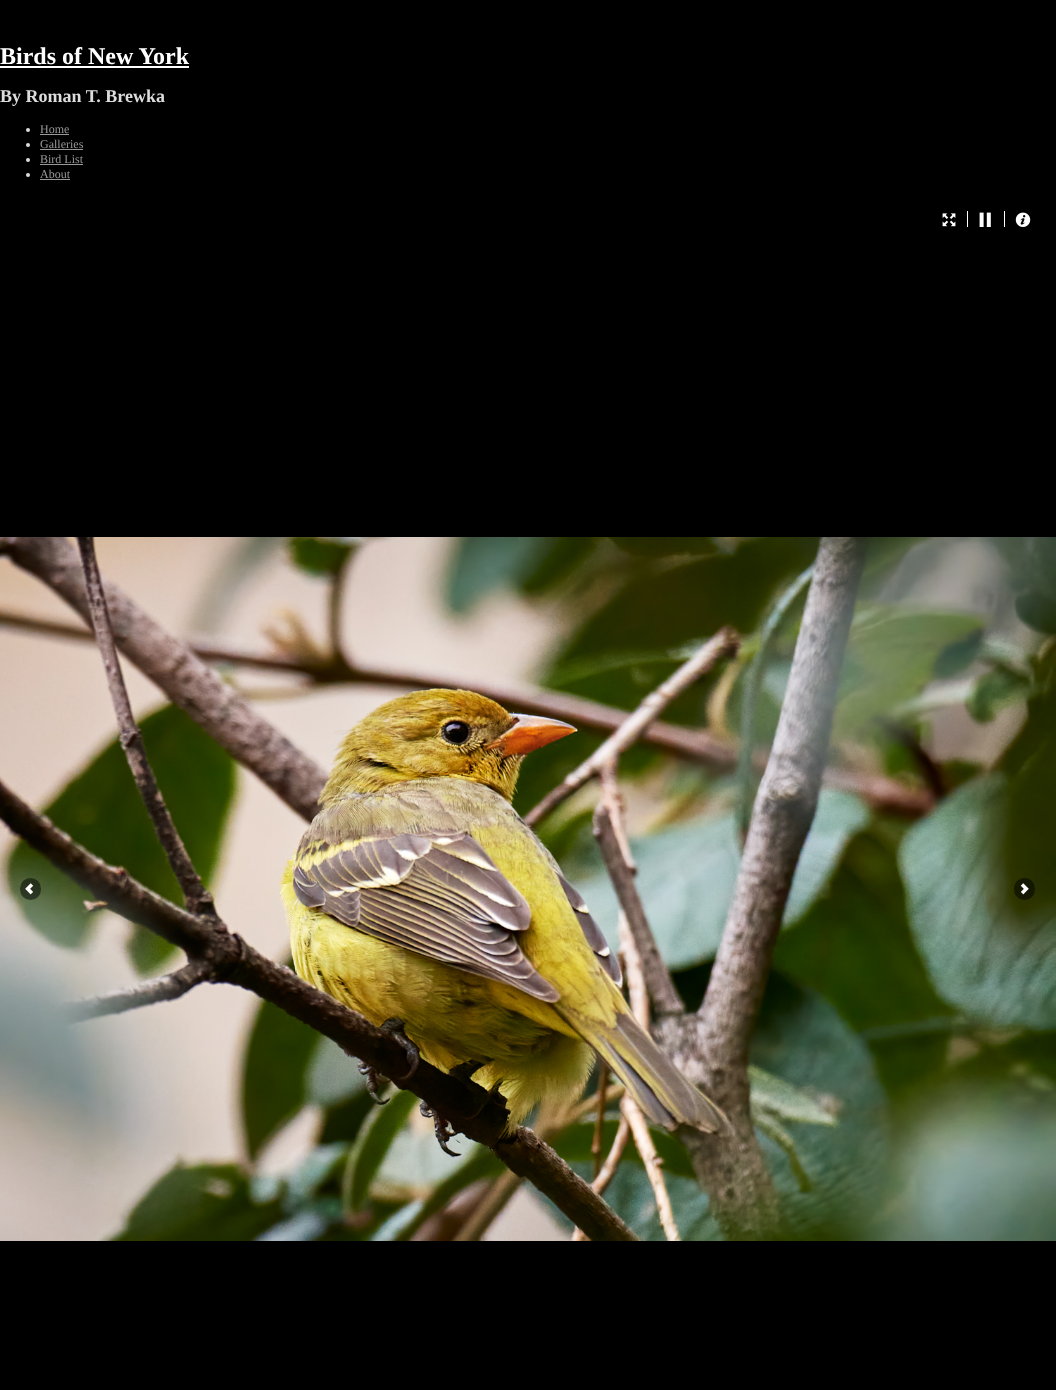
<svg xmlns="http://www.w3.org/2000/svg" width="1056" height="1390">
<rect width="100%" height="100%" fill="#000"/>
<text x="0" y="64" style="font-family:Liberation Serif;font-size:24px;font-weight:bold;fill:#fff">Birds of New York</text>
<rect y="66" width="189" height="2" fill="#fff"/>
<text x="0" y="102" style="font-family:Liberation Serif;font-size:18px;font-weight:bold;fill:#ddd">By Roman T. Brewka</text>
<circle cx="28" cy="130" r="2" fill="#ddd"/>
<text x="40" y="133" style="font-family:Liberation Serif;font-size:12px;fill:#999">Home</text>
<rect x="40" y="134" width="29" height="1" fill="#999"/>
<circle cx="28" cy="145" r="2" fill="#ddd"/>
<text x="40" y="148" style="font-family:Liberation Serif;font-size:12px;fill:#999">Galleries</text>
<rect x="40" y="149" width="43" height="1" fill="#999"/>
<circle cx="28" cy="160" r="2" fill="#ddd"/>
<text x="40" y="163" style="font-family:Liberation Serif;font-size:12px;fill:#999">Bird List</text>
<rect x="40" y="164" width="43" height="1" fill="#999"/>
<circle cx="28" cy="175" r="2" fill="#ddd"/>
<text x="40" y="178" style="font-family:Liberation Serif;font-size:12px;fill:#999">About</text>
<rect x="40" y="179" width="30" height="1" fill="#999"/>
<image x="942" y="213" width="14" height="14" href="media/1.png"/>
<rect x="967" y="211" width="1" height="16" fill="#fff"/>
<image x="979" y="212" width="12" height="15" href="media/2.png"/>
<rect x="1004" y="211" width="1" height="16" fill="#fff"/>
<image x="1015" y="212" width="16" height="15" href="media/3.png"/>
<image x="0" y="537" width="1056" height="704" href="media/4.png"/>
<rect x="20" y="878" width="21" height="22" rx="10.5" fill="#00000080"/>
<image x="25" y="883" width="9" height="12" href="media/5.png"/>
<rect x="1014" y="878" width="21" height="22" rx="10.5" fill="#00000080"/>
<image x="1020" y="883" width="9" height="12" href="media/6.png"/>
</svg>
